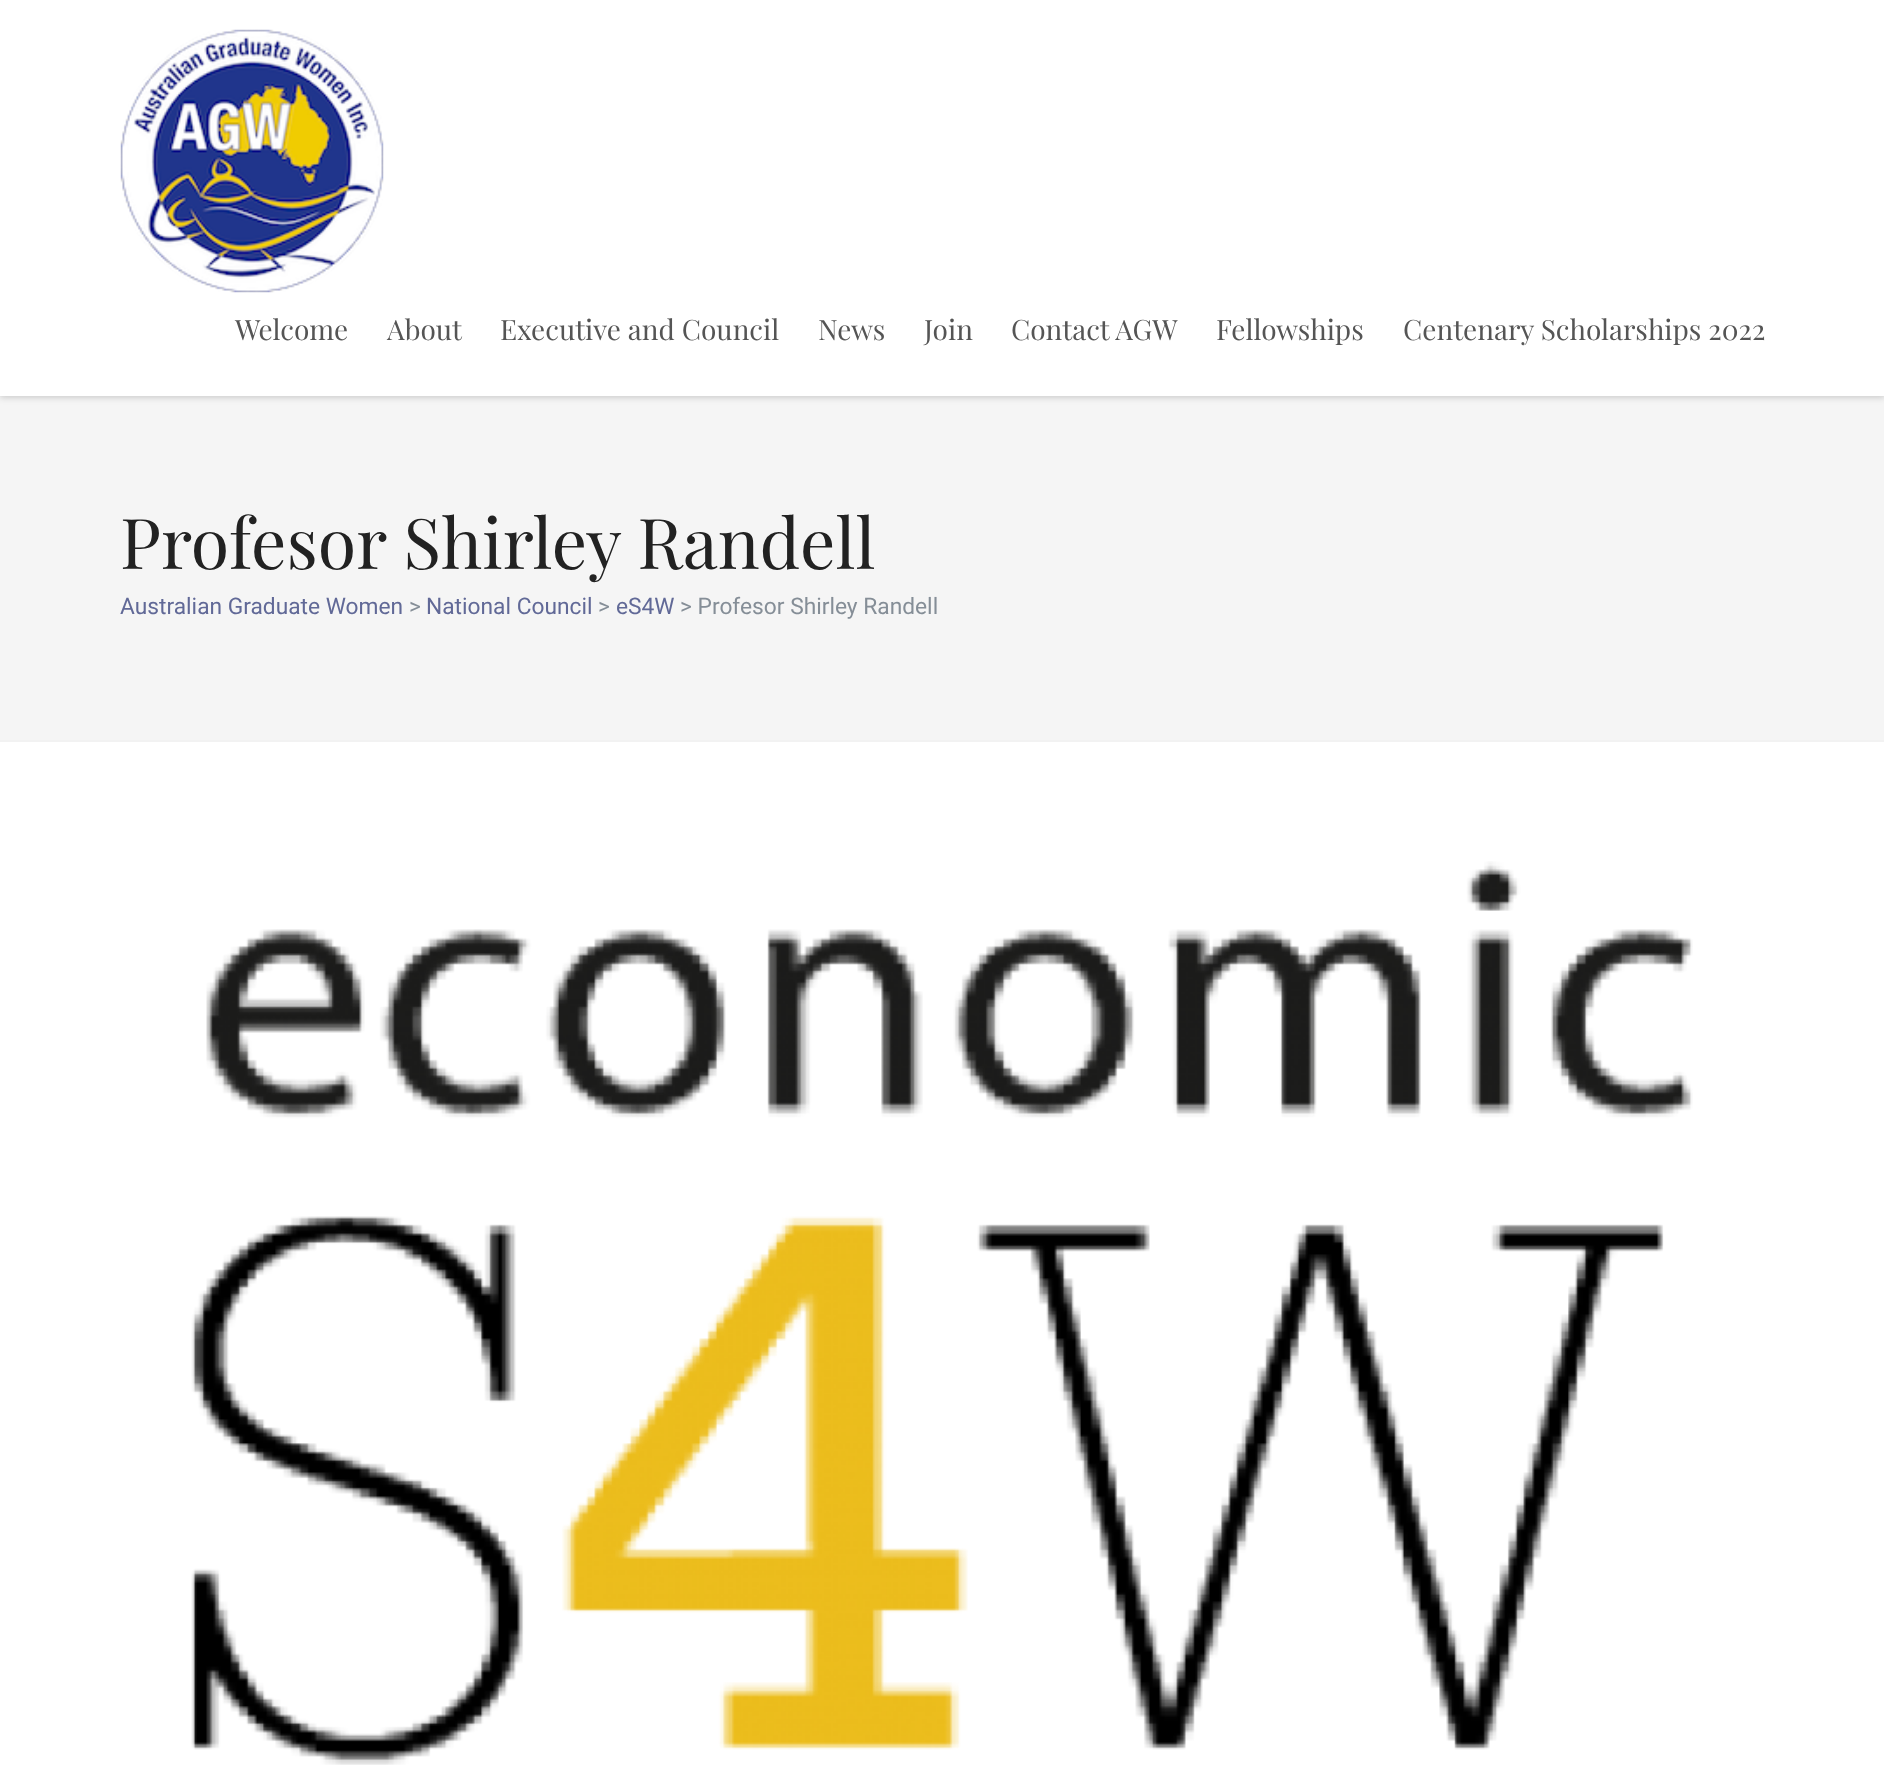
<svg xmlns="http://www.w3.org/2000/svg" width="1884" height="1778">
<rect width="100%" height="100%" fill="#fff"/>
<rect y="396" width="1884" height="344" fill="#f5f5f5"/>
<rect y="2" width="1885" height="395" fill="#00000033" filter="blur(3.5px)"/>
<rect width="1884" height="396" fill="#fff"/>
<image x="120" y="29" width="264" height="264" href="media/1.png"/>
<text x="235" y="340" style="font-family:Playfair Display;font-size:28px;fill:#555">Welcome</text>
<text x="387" y="340" style="font-family:Playfair Display;font-size:28px;fill:#555">About</text>
<text x="500" y="340" style="font-family:Playfair Display;font-size:28px;fill:#555">Executive and Council</text>
<text x="818" y="340" style="font-family:Playfair Display;font-size:28px;fill:#555">News</text>
<text x="924" y="340" style="font-family:Playfair Display;font-size:28px;fill:#555">Join</text>
<text x="1011" y="340" style="font-family:Playfair Display;font-size:28px;fill:#555">Contact AGW</text>
<text x="1216" y="340" style="font-family:Playfair Display;font-size:28px;fill:#555">Fellowships</text>
<text x="1403" y="340" style="font-family:Playfair Display;font-size:28px;fill:#555">Centenary Scholarships 2022</text>
<rect y="740" width="1884" height="2" fill="#f2f2f2"/>
<text x="120" y="569" style="font-family:Playfair Display;font-size:70px;fill:#222">Profesor Shirley Randell</text>
<text x="120" y="614" style="font-family:Roboto;font-size:22.75px;fill:#616997">Australian Graduate Women</text>
<text x="409" y="614" style="font-family:Roboto;font-size:22.75px;fill:#858e97">&gt;</text>
<text x="426" y="614" style="font-family:Roboto;font-size:22.75px;fill:#616997">National Council</text>
<text x="598" y="614" style="font-family:Roboto;font-size:22.75px;fill:#858e97">&gt;</text>
<text x="616" y="614" style="font-family:Roboto;font-size:22.75px;fill:#616997">eS4W</text>
<text x="680" y="614" style="font-family:Roboto;font-size:22.75px;fill:#858e97">&gt; Profesor Shirley Randell</text>
<image x="191" y="861" width="1502" height="904" href="media/2.png"/>
</svg>
